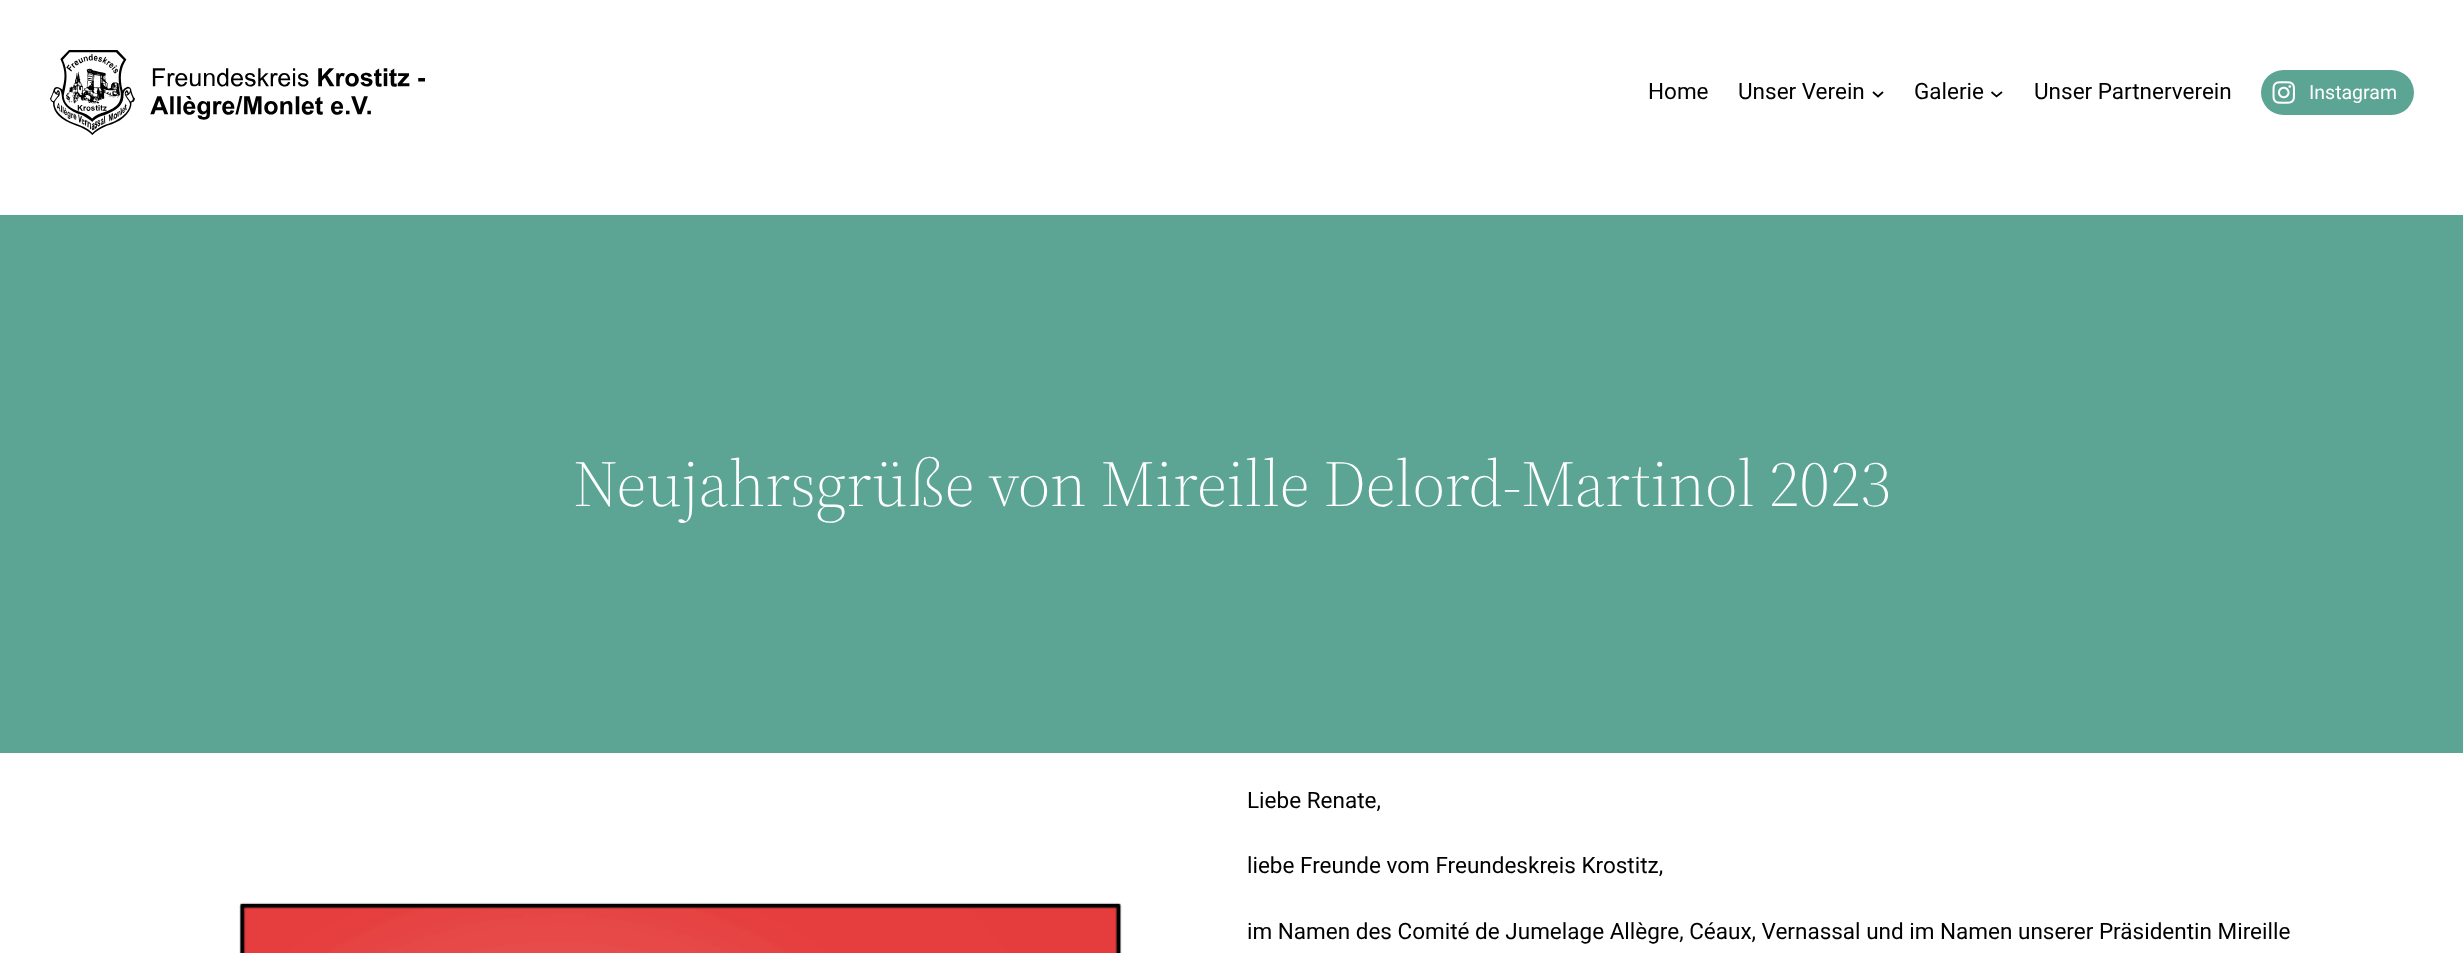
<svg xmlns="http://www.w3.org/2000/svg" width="2463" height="953">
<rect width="100%" height="100%" fill="#fff"/>
<image x="50" y="50" width="375" height="85" href="media/1.png"/>
<text x="1648" y="99" style="font-family:Roboto;font-size:22.5px;fill:#000">Home</text>
<text x="1738" y="99" style="font-family:Roboto;font-size:22.5px;fill:#000">Unser Verein</text>
<path d="M1873 92l5 4.5l5-4.5" fill="none" stroke="#000" stroke-width="1.7"/>
<text x="1914" y="99" style="font-family:Roboto;font-size:22.5px;fill:#000">Galerie</text>
<path d="M1991.5 92l5 4.5l5.5-4.5" fill="none" stroke="#000" stroke-width="1.7"/>
<text x="2034" y="99" style="font-family:Roboto;font-size:22.5px;fill:#000">Unser Partnerverein</text>
<rect x="2261" y="70" width="153" height="45" rx="22.5" fill="#5ca595"/>
<image x="2272" y="81" width="23" height="23" href="media/2.png"/>
<text x="2309" y="99" style="font-family:Roboto;font-size:19.5px;fill:#fff">Instagram</text>
<rect y="215" width="2463" height="538" fill="#5ca595"/>
<text x="573" y="506" style="font-family:'Source Serif 4';font-size:65px;font-weight:300;fill:#fff">Neujahrsgrüße von Mireille Delord-Martinol 2023</text>
<image x="239" y="902" width="883" height="51" href="media/3.png"/>
<text x="1247" y="808" style="font-family:Roboto;font-size:22.5px;fill:#000">Liebe Renate,</text>
<text x="1247" y="873" style="font-family:Roboto;font-size:22.5px;fill:#000">liebe Freunde vom Freundeskreis Krostitz,</text>
<text x="1247" y="939" style="font-family:Roboto;font-size:22.5px;fill:#000">im Namen des Comité de Jumelage Allègre, Céaux, Vernassal und im Namen unserer Präsidentin Mireille</text>
</svg>
